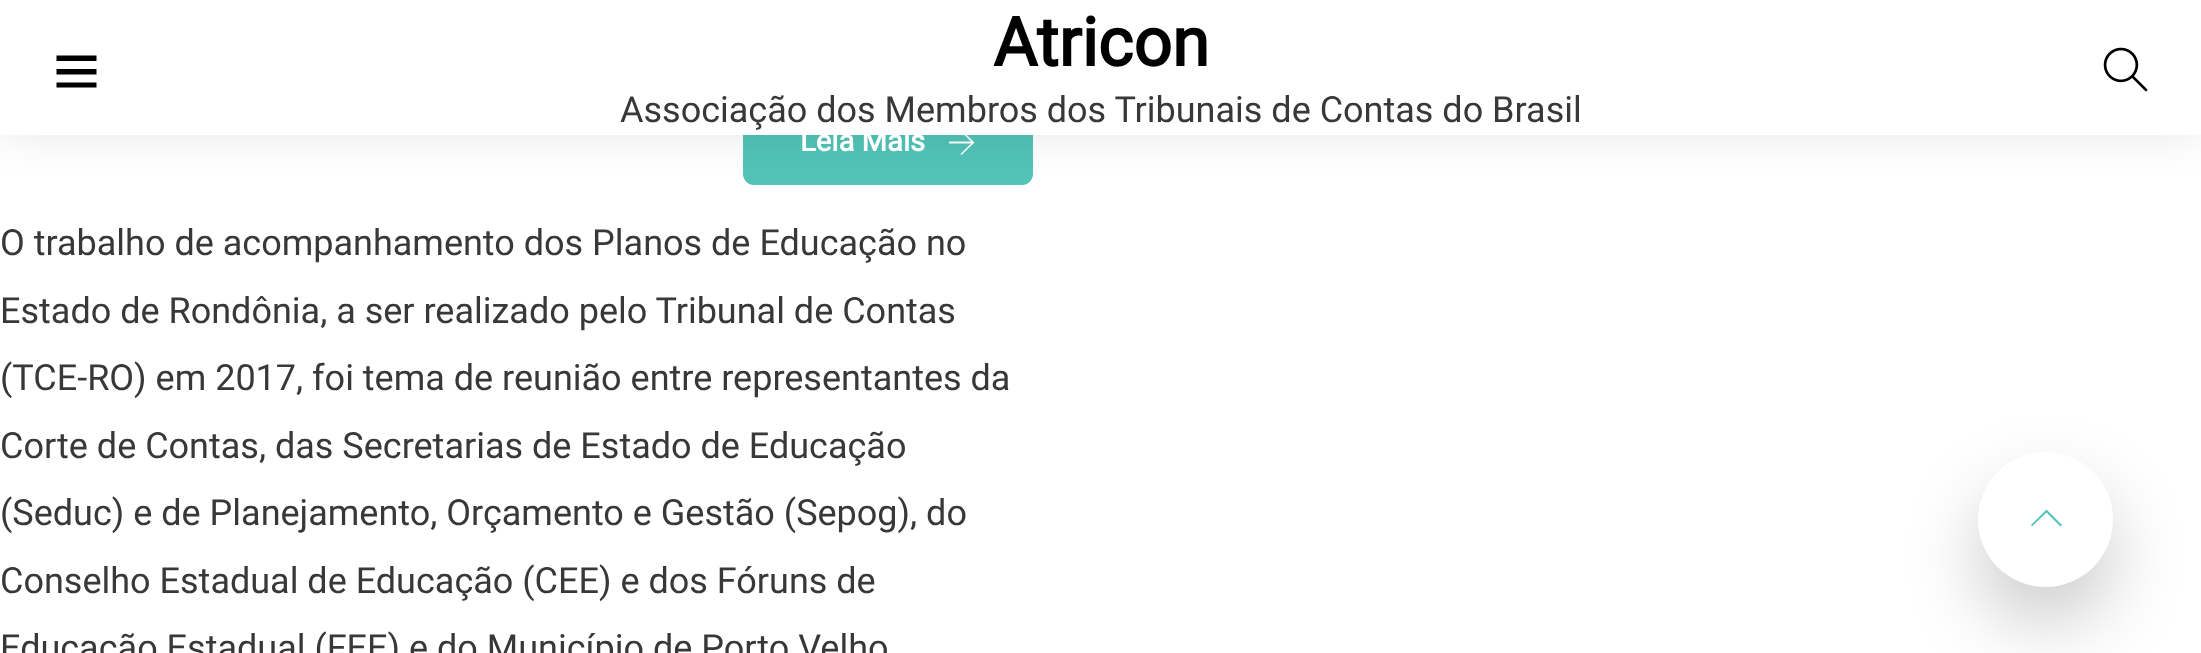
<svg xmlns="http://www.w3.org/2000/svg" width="2201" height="653">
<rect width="100%" height="100%" fill="#fff"/>
<rect x="743" y="101" width="290" height="84" rx="11" fill="#52c3b7"/>
<path d="M974.5 142.5l-13 12.5l-1-1l10.5-10.5h-22v-2h22l-10.5-10.5l1-1z" fill="#fff"/>
<rect x="2" y="2" width="2199" height="131" fill="#0000001a" filter="blur(22.5px)"/>
<rect width="2201" height="135" fill="#fff"/>
<path d="M96.5 55.5v5.5h-40v-5.5zm-40 19h40v-5.5h-40zm0 13h40v-5h-40z" fill="#000"/>
<text x="993" y="66" style="font-family:Roboto;font-size:67.5px;font-weight:bold;fill:#000">Atricon</text>
<text x="620" y="122" style="font-family:Roboto;font-size:36px;fill:#383838">Associação dos Membros dos Tribunais de Contas do Brasil</text>
<image x="2103" y="47" width="45" height="45" href="media/1.png"/>
<text x="800" y="151" style="font-family:Roboto;font-size:29.25px;font-weight:bold;fill:#fff">Leia Mais</text>
<text x="0" y="255" style="font-family:Roboto;font-size:36px;fill:#383838">O trabalho de acompanhamento dos Planos de Educação no</text>
<text x="0" y="323" style="font-family:Roboto;font-size:36px;fill:#383838">Estado de Rondônia, a ser realizado pelo Tribunal de Contas</text>
<text x="0" y="390" style="font-family:Roboto;font-size:36px;fill:#383838">(TCE-RO) em 2017, foi tema de reunião entre representantes da</text>
<text x="0" y="458" style="font-family:Roboto;font-size:36px;fill:#383838">Corte de Contas, das Secretarias de Estado de Educação</text>
<text x="0" y="525" style="font-family:Roboto;font-size:36px;fill:#383838">(Seduc) e de Planejamento, Orçamento e Gestão (Sepog), do</text>
<text x="0" y="593" style="font-family:Roboto;font-size:36px;fill:#383838">Conselho Estadual de Educação (CEE) e dos Fóruns de</text>
<text x="0" y="660" style="font-family:Roboto;font-size:36px;fill:#383838">Educação Estadual (FEE) e do Município de Porto Velho</text>
<rect x="1978" y="488" width="135" height="135" rx="67.5" fill="#00000033" filter="blur(36px)"/>
<circle cx="2045.5" cy="519.5" r="67.5" fill="#fff"/>
<path d="M2062 525l-1.5 1.5l-14-14l-14.5 14l-1-1.5l15.5-15.5z" fill="#52c3b7"/>
</svg>
